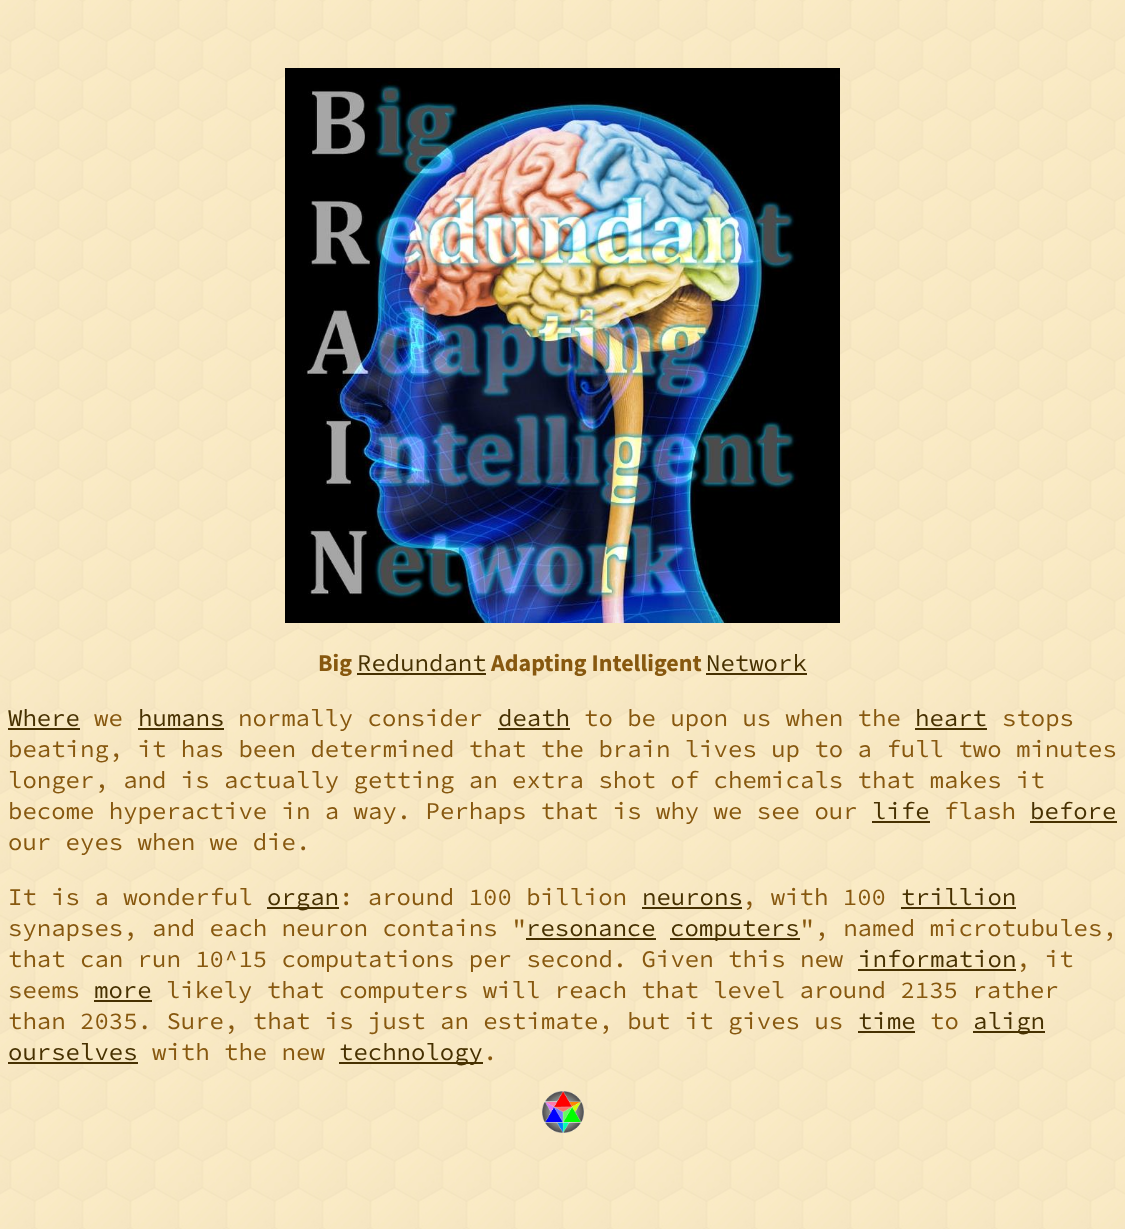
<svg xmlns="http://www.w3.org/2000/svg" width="1125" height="1229">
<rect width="100%" height="100%" fill="#fff"/>
<image x="0" y="0" width="1125" height="1229" href="media/1.png"/>
<image x="285" y="68" width="555" height="555" href="media/2.png"/>
<text x="318" y="671" style="font-family:Source Sans Pro;font-size:24px;font-weight:bold;fill:#87580f">Big</text>
<text x="357" y="671" style="font-family:Source Code Pro;font-size:24px;fill:#473101">Redundant</text>
<text x="491" y="671" style="font-family:Source Sans Pro;font-size:24px;font-weight:bold;fill:#87580f">Adapting Intelligent</text>
<rect x="357" y="673" width="129" height="2" fill="#473101"/>
<rect x="706" y="673" width="101" height="2" fill="#473101"/>
<text x="706" y="671" style="font-family:Source Code Pro;font-size:24px;fill:#473101">Network</text>
<text x="8" y="726" style="font-family:Source Code Pro;font-size:24px;fill:#473101">Where</text>
<rect x="8" y="728" width="72" height="2" fill="#473101"/>
<text x="94" y="726" style="font-family:Source Code Pro;font-size:24px;fill:#87580f">we</text>
<text x="138" y="726" style="font-family:Source Code Pro;font-size:24px;fill:#473101">humans</text>
<rect x="138" y="728" width="86" height="2" fill="#473101"/>
<text x="238" y="726" style="font-family:Source Code Pro;font-size:24px;fill:#87580f">normally consider</text>
<text x="498" y="726" style="font-family:Source Code Pro;font-size:24px;fill:#473101">death</text>
<rect x="498" y="728" width="72" height="2" fill="#473101"/>
<text x="584" y="726" style="font-family:Source Code Pro;font-size:24px;fill:#87580f">to be upon us when the</text>
<text x="915" y="726" style="font-family:Source Code Pro;font-size:24px;fill:#473101">heart</text>
<rect x="915" y="728" width="72" height="2" fill="#473101"/>
<text x="1002" y="726" style="font-family:Source Code Pro;font-size:24px;fill:#87580f">stops</text>
<text x="8" y="757" style="font-family:Source Code Pro;font-size:24px;fill:#87580f">beating, it has been determined that the brain lives up to a full two minutes</text>
<text x="8" y="788" style="font-family:Source Code Pro;font-size:24px;fill:#87580f">longer, and is actually getting an extra shot of chemicals that makes it</text>
<text x="8" y="819" style="font-family:Source Code Pro;font-size:24px;fill:#87580f">become hyperactive in a way. Perhaps that is why we see our</text>
<text x="872" y="819" style="font-family:Source Code Pro;font-size:24px;fill:#473101">life</text>
<rect x="872" y="821" width="58" height="2" fill="#473101"/>
<text x="944" y="819" style="font-family:Source Code Pro;font-size:24px;fill:#87580f">flash</text>
<text x="1030" y="819" style="font-family:Source Code Pro;font-size:24px;fill:#473101">before</text>
<rect x="1030" y="821" width="87" height="2" fill="#473101"/>
<text x="8" y="850" style="font-family:Source Code Pro;font-size:24px;fill:#87580f">our eyes when we die.</text>
<text x="8" y="905" style="font-family:Source Code Pro;font-size:24px;fill:#87580f">It is a wonderful</text>
<rect x="267" y="907" width="72" height="2" fill="#473101"/>
<text x="267" y="905" style="font-family:Source Code Pro;font-size:24px;fill:#473101">organ</text>
<text x="339" y="905" style="font-family:Source Code Pro;font-size:24px;fill:#87580f">: around 100 billion</text>
<text x="642" y="905" style="font-family:Source Code Pro;font-size:24px;fill:#473101">neurons</text>
<rect x="642" y="907" width="100" height="2" fill="#473101"/>
<text x="742" y="905" style="font-family:Source Code Pro;font-size:24px;fill:#87580f">, with 100</text>
<text x="901" y="905" style="font-family:Source Code Pro;font-size:24px;fill:#473101">trillion</text>
<rect x="901" y="907" width="115" height="2" fill="#473101"/>
<text x="8" y="936" style="font-family:Source Code Pro;font-size:24px;fill:#87580f">synapses, and each neuron contains "</text>
<text x="526" y="936" style="font-family:Source Code Pro;font-size:24px;fill:#473101">resonance</text>
<rect x="526" y="938" width="130" height="2" fill="#473101"/>
<rect x="670" y="938" width="130" height="2" fill="#473101"/>
<text x="670" y="936" style="font-family:Source Code Pro;font-size:24px;fill:#473101">computers</text>
<text x="800" y="936" style="font-family:Source Code Pro;font-size:24px;fill:#87580f">", named microtubules,</text>
<text x="8" y="967" style="font-family:Source Code Pro;font-size:24px;fill:#87580f">that can run 10^15 computations per second. Given this new</text>
<text x="858" y="967" style="font-family:Source Code Pro;font-size:24px;fill:#473101">information</text>
<rect x="858" y="969" width="158" height="2" fill="#473101"/>
<text x="1016" y="967" style="font-family:Source Code Pro;font-size:24px;fill:#87580f">, it</text>
<text x="8" y="998" style="font-family:Source Code Pro;font-size:24px;fill:#87580f">seems</text>
<text x="94" y="998" style="font-family:Source Code Pro;font-size:24px;fill:#473101">more</text>
<rect x="94" y="1000" width="58" height="2" fill="#473101"/>
<text x="166" y="998" style="font-family:Source Code Pro;font-size:24px;fill:#87580f">likely that computers will reach that level around 2135 rather</text>
<text x="8" y="1029" style="font-family:Source Code Pro;font-size:24px;fill:#87580f">than 2035. Sure, that is just an estimate, but it gives us</text>
<text x="858" y="1029" style="font-family:Source Code Pro;font-size:24px;fill:#473101">time</text>
<rect x="858" y="1031" width="57" height="2" fill="#473101"/>
<text x="930" y="1029" style="font-family:Source Code Pro;font-size:24px;fill:#87580f">to</text>
<rect x="973" y="1031" width="72" height="2" fill="#473101"/>
<text x="973" y="1029" style="font-family:Source Code Pro;font-size:24px;fill:#473101">align</text>
<text x="8" y="1060" style="font-family:Source Code Pro;font-size:24px;fill:#473101">ourselves</text>
<rect x="8" y="1062" width="130" height="2" fill="#473101"/>
<text x="152" y="1060" style="font-family:Source Code Pro;font-size:24px;fill:#87580f">with the new</text>
<rect x="339" y="1062" width="144" height="2" fill="#473101"/>
<text x="339" y="1060" style="font-family:Source Code Pro;font-size:24px;fill:#473101">technology</text>
<text x="483" y="1060" style="font-family:Source Code Pro;font-size:24px;fill:#87580f">.</text>
<image x="542" y="1091" width="42" height="42" href="media/3.png"/>
</svg>
